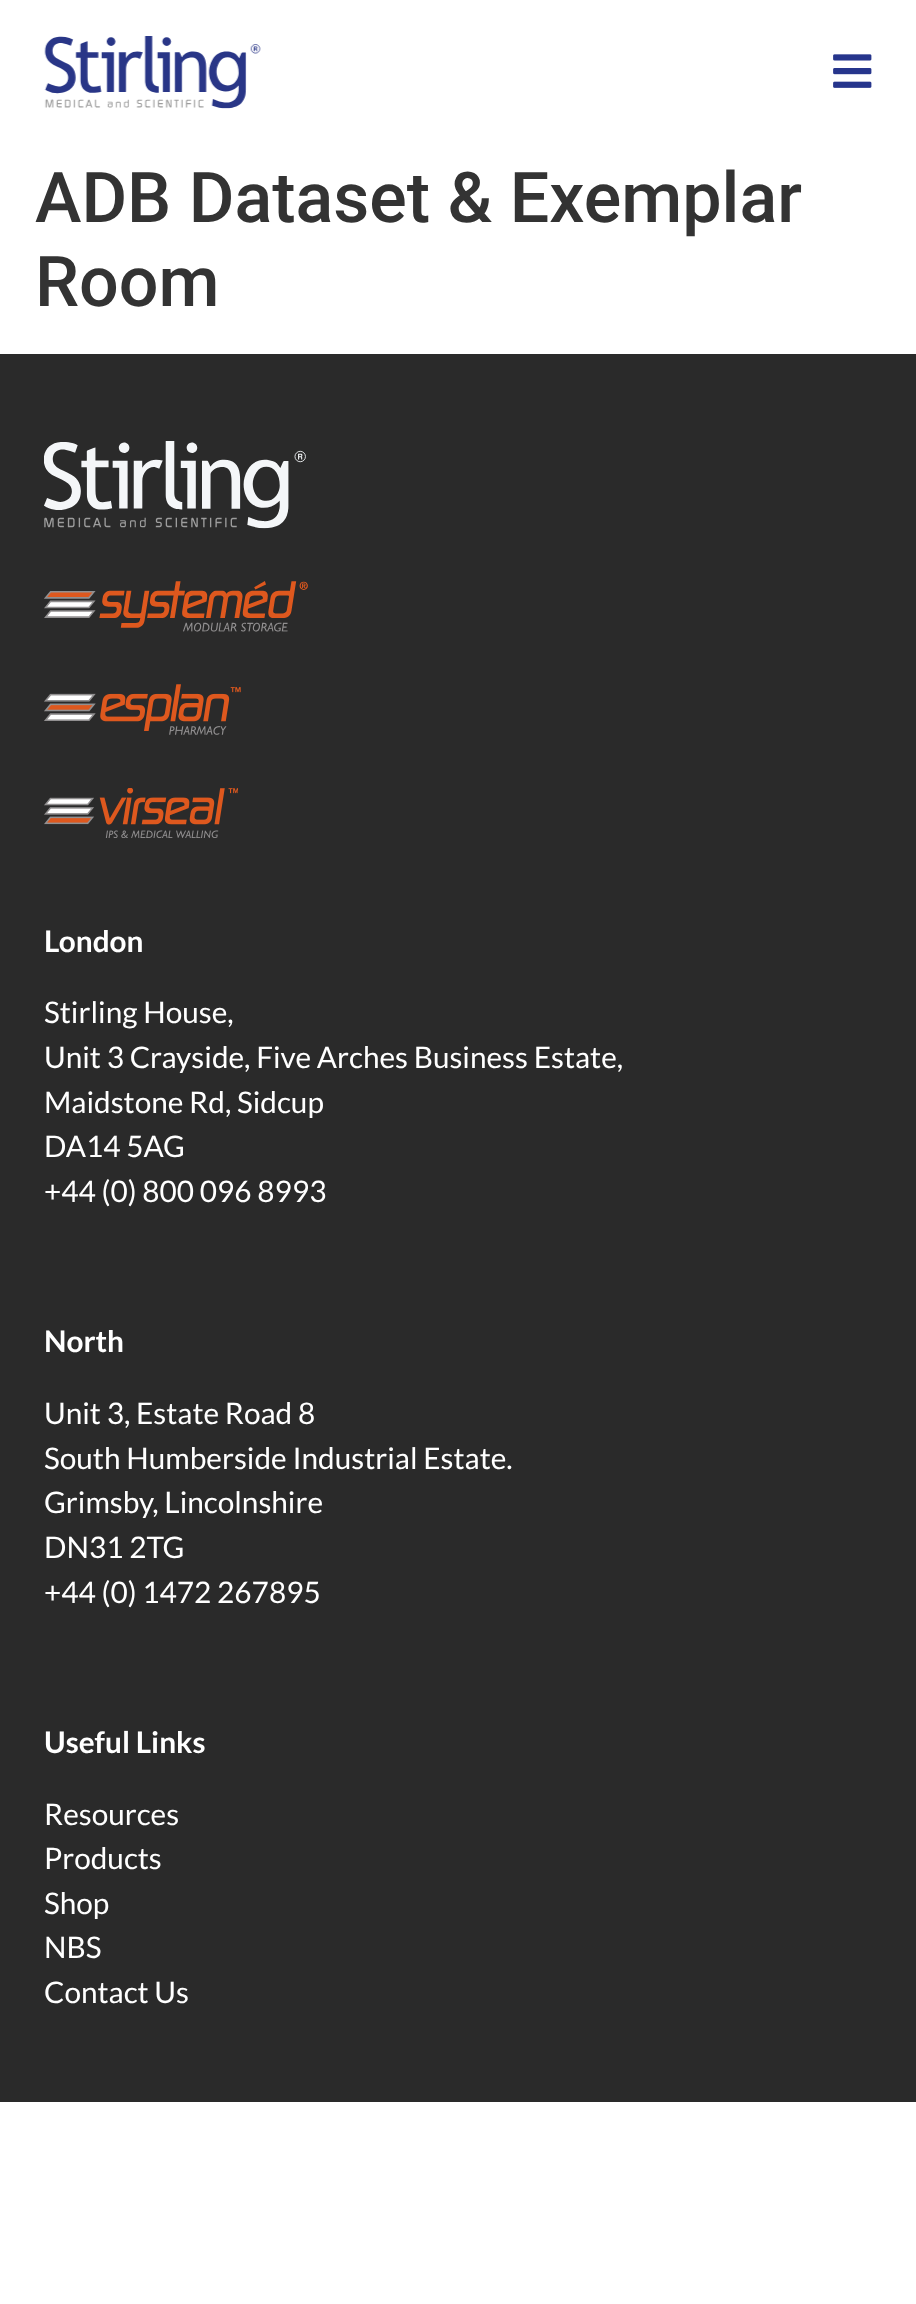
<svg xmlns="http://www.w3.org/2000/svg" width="916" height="2304">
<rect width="100%" height="100%" fill="#fff"/>
<image x="44" y="36" width="217" height="73" href="media/1.png"/>
<image x="833" y="54" width="39" height="34" href="media/2.png"/>
<text x="35" y="222" style="font-family:Roboto;font-size:70px;font-weight:500;fill:#333">ADB Dataset &amp; Exemplar</text>
<text x="35" y="306" style="font-family:Roboto;font-size:70px;font-weight:500;fill:#333">Room</text>
<rect y="354" width="916" height="1748" fill="#2a2a2a"/>
<image x="44" y="441" width="262" height="88" href="media/3.png"/>
<image x="44" y="581" width="264" height="51" href="media/4.png"/>
<image x="44" y="684" width="197" height="51" href="media/5.png"/>
<image x="44" y="788" width="194" height="50" href="media/6.png"/>
<text x="44" y="952" style="font-family:Lato;font-size:29.75px;font-weight:bold;fill:#fff">London</text>
<text x="44" y="1023" style="font-family:Lato;font-size:29.75px;fill:#fff">Stirling House,</text>
<text x="44" y="1068" style="font-family:Lato;font-size:29.75px;fill:#fff">Unit 3 Crayside, Five Arches Business Estate,</text>
<text x="44" y="1113" style="font-family:Lato;font-size:29.75px;fill:#fff">Maidstone Rd, Sidcup</text>
<text x="44" y="1157" style="font-family:Lato;font-size:29.75px;fill:#fff">DA14 5AG</text>
<text x="44" y="1202" style="font-family:Lato;font-size:29.75px;fill:#fff">+44 (0) 800 096 8993</text>
<text x="44" y="1352" style="font-family:Lato;font-size:29.75px;font-weight:bold;fill:#fff">North</text>
<text x="44" y="1424" style="font-family:Lato;font-size:29.75px;fill:#fff">Unit 3, Estate Road 8</text>
<text x="44" y="1469" style="font-family:Lato;font-size:29.75px;fill:#fff">South Humberside Industrial Estate.</text>
<text x="44" y="1513" style="font-family:Lato;font-size:29.75px;fill:#fff">Grimsby, Lincolnshire</text>
<text x="44" y="1558" style="font-family:Lato;font-size:29.75px;fill:#fff">DN31 2TG</text>
<text x="44" y="1603" style="font-family:Lato;font-size:29.75px;fill:#fff">+44 (0) 1472 267895</text>
<text x="44" y="1753" style="font-family:Lato;font-size:29.75px;font-weight:bold;fill:#fff">Useful Links</text>
<text x="44" y="1825" style="font-family:Lato;font-size:29.75px;fill:#fff">Resources</text>
<text x="44" y="1869" style="font-family:Lato;font-size:29.75px;fill:#fff">Products</text>
<text x="44" y="1914" style="font-family:Lato;font-size:29.75px;fill:#fff">Shop</text>
<text x="44" y="1958" style="font-family:Lato;font-size:29.75px;fill:#fff">NBS</text>
<text x="44" y="2003" style="font-family:Lato;font-size:29.75px;fill:#fff">Contact Us</text>
</svg>
